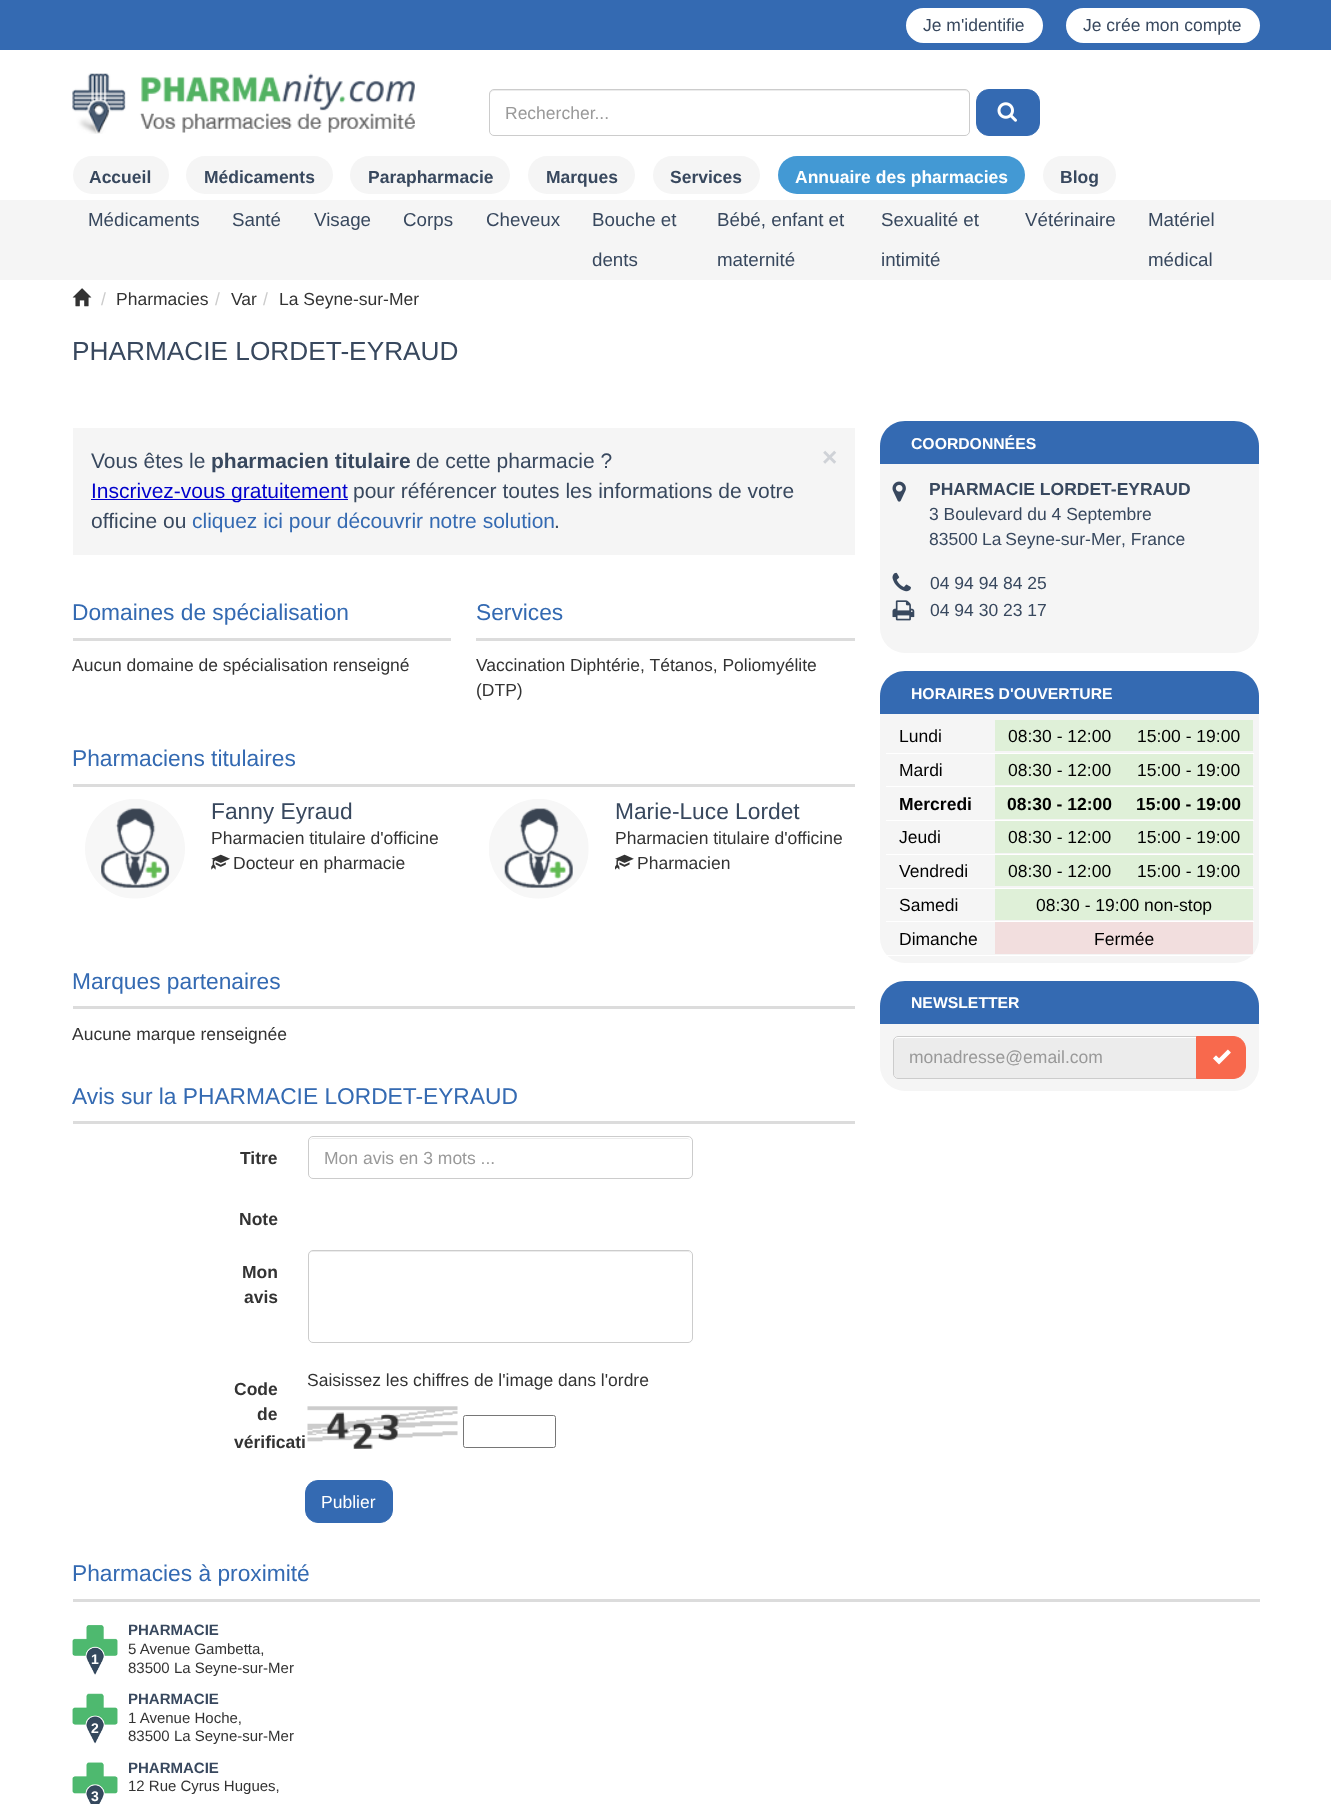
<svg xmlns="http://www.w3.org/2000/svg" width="1331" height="1804">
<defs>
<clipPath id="clip1"><rect x="880" y="671" width="379" height="292" rx="25"/></clipPath>
</defs>
<rect width="100%" height="100%" fill="#fff"/>
<rect width="1331" height="50" fill="#346ab2"/>
<rect x="906" y="8" width="137" height="35" rx="17.5" fill="#fff"/>
<text x="923" y="31" style="font-family:Liberation Sans;font-size:17.5px;fill:#38485e">Je m'identifie</text>
<rect x="1066" y="8" width="194" height="35" rx="17.5" fill="#fff"/>
<text x="1083" y="31" style="font-family:Liberation Sans;font-size:17.5px;fill:#38485e">Je crée mon compte</text>
<image x="72" y="73" width="343" height="61" href="media/1.png"/>
<path d="M494 91h471c2 0 4 2 4 4c0-3-1-5-4-5h-471c-3 0-4 2-4 5c0-2 2-4 4-4z" fill="#ececec"/>
<rect x="489.5" y="89.5" width="480" height="46" rx="4.5" fill="none" stroke="#ccc"/>
<text x="505" y="119" style="font-family:Liberation Sans;font-size:17.5px;fill:#999">Rechercher...</text>
<rect x="976.5" y="89.5" width="63" height="46" rx="12.5" fill="#346ab2" stroke="#346ab2"/>
<image x="997" y="102" width="20" height="20" href="media/2.png"/>
<rect x="73" y="156" width="96" height="38" rx="19" fill="#f5f5f5"/>
<text x="89" y="183" style="font-family:Liberation Sans;font-size:17.5px;font-weight:bold;fill:#38485e">Accueil</text>
<rect x="186" y="156" width="147" height="38" rx="19" fill="#f5f5f5"/>
<text x="204" y="183" style="font-family:Liberation Sans;font-size:17.5px;font-weight:bold;fill:#38485e">Médicaments</text>
<rect x="350" y="156" width="160" height="38" rx="19" fill="#f5f5f5"/>
<text x="368" y="183" style="font-family:Liberation Sans;font-size:17.5px;font-weight:bold;fill:#38485e">Parapharmacie</text>
<rect x="528" y="156" width="107" height="38" rx="19" fill="#f5f5f5"/>
<text x="546" y="183" style="font-family:Liberation Sans;font-size:17.5px;font-weight:bold;fill:#38485e">Marques</text>
<rect x="653" y="156" width="107" height="38" rx="19" fill="#f5f5f5"/>
<text x="670" y="183" style="font-family:Liberation Sans;font-size:17.5px;font-weight:bold;fill:#38485e">Services</text>
<rect x="778" y="156" width="247" height="38" rx="19" fill="#4399d4"/>
<text x="795" y="183" style="font-family:Liberation Sans;font-size:17.5px;font-weight:bold;fill:#fff">Annuaire des pharmacies</text>
<rect x="1043" y="156" width="73" height="38" rx="19" fill="#f5f5f5"/>
<text x="1060" y="183" style="font-family:Liberation Sans;font-size:17.5px;font-weight:bold;fill:#38485e">Blog</text>
<rect x="-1" y="200" width="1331" height="80" fill="#808080" filter="blur(0.5px)"/>
<rect y="200" width="1331" height="80" fill="#f5f5f5"/>
<text x="88" y="226" style="font-family:Liberation Sans;font-size:18.75px;fill:#38485e">Médicaments</text>
<text x="232" y="226" style="font-family:Liberation Sans;font-size:18.75px;fill:#38485e">Santé</text>
<text x="314" y="226" style="font-family:Liberation Sans;font-size:18.75px;fill:#38485e">Visage</text>
<text x="403" y="226" style="font-family:Liberation Sans;font-size:18.75px;fill:#38485e">Corps</text>
<text x="486" y="226" style="font-family:Liberation Sans;font-size:18.75px;fill:#38485e">Cheveux</text>
<text x="592" y="226" style="font-family:Liberation Sans;font-size:18.75px;fill:#38485e">Bouche et</text>
<text x="592" y="266" style="font-family:Liberation Sans;font-size:18.75px;fill:#38485e">dents</text>
<text x="717" y="226" style="font-family:Liberation Sans;font-size:18.75px;fill:#38485e">Bébé, enfant et</text>
<text x="717" y="266" style="font-family:Liberation Sans;font-size:18.75px;fill:#38485e">maternité</text>
<text x="881" y="226" style="font-family:Liberation Sans;font-size:18.75px;fill:#38485e">Sexualité et</text>
<text x="881" y="266" style="font-family:Liberation Sans;font-size:18.75px;fill:#38485e">intimité</text>
<text x="1025" y="226" style="font-family:Liberation Sans;font-size:18.75px;fill:#38485e">Vétérinaire</text>
<text x="1148" y="226" style="font-family:Liberation Sans;font-size:18.75px;fill:#38485e">Matériel</text>
<text x="1148" y="266" style="font-family:Liberation Sans;font-size:18.75px;fill:#38485e">médical</text>
<rect y="280" width="1330" height="1" fill="#fff"/>
<image x="72" y="288" width="20" height="19" href="media/3.png"/>
<text x="101" y="305" style="font-family:Liberation Sans;font-size:17.5px;fill:#ccc">/</text>
<text x="116" y="305" style="font-family:Liberation Sans;font-size:17.5px;fill:#333">Pharmacies</text>
<text x="215" y="305" style="font-family:Liberation Sans;font-size:17.5px;fill:#ccc">/</text>
<text x="231" y="305" style="font-family:Liberation Sans;font-size:17.5px;fill:#333">Var</text>
<text x="263" y="305" style="font-family:Liberation Sans;font-size:17.5px;fill:#ccc">/</text>
<text x="279" y="305" style="font-family:Liberation Sans;font-size:17.5px;fill:#333">La Seyne-sur-Mer</text>
<text x="72" y="360" style="font-family:Liberation Sans;font-size:26.25px;fill:#38485e">PHARMACIE LORDET-EYRAUD</text>
<rect x="73" y="428" width="782" height="127" fill="#f5f5f5"/>
<text x="91" y="468" style="font-family:Liberation Sans;font-size:21px;fill:#38485e">Vous êtes le</text>
<text x="211" y="468" style="font-family:Liberation Sans;font-size:21px;font-weight:bold;fill:#38485e">pharmacien titulaire</text>
<text x="416" y="468" style="font-family:Liberation Sans;font-size:21px;fill:#38485e">de cette pharmacie ?</text>
<text x="822" y="466" style="font-family:Liberation Sans;font-size:26.25px;font-weight:bold;fill:#cfd2d7">×</text>
<rect x="91" y="499" width="257" height="1" fill="#00c"/>
<text x="91" y="498" style="font-family:Liberation Sans;font-size:21px;fill:#00c">Inscrivez-vous gratuitement</text>
<text x="353" y="498" style="font-family:Liberation Sans;font-size:21px;fill:#38485e">pour référencer toutes les informations de votre</text>
<text x="91" y="528" style="font-family:Liberation Sans;font-size:21px;fill:#38485e">officine ou</text>
<text x="192" y="528" style="font-family:Liberation Sans;font-size:21px;fill:#346ab2">cliquez ici pour découvrir notre solution</text>
<text x="554" y="528" style="font-family:Liberation Sans;font-size:21px;fill:#38485e">.</text>
<text x="72" y="620" style="font-family:Liberation Sans;font-size:22.75px;fill:#346ab2">Domaines de spécialisation</text>
<rect x="73" y="638" width="378" height="3" fill="#dcdcdc"/>
<text x="72" y="671" style="font-family:Liberation Sans;font-size:17.5px;fill:#333">Aucun domaine de spécialisation renseigné</text>
<text x="476" y="620" style="font-family:Liberation Sans;font-size:22.75px;fill:#346ab2">Services</text>
<rect x="476" y="638" width="379" height="3" fill="#dcdcdc"/>
<text x="476" y="671" style="font-family:Liberation Sans;font-size:17.5px;fill:#333">Vaccination Diphtérie, Tétanos, Poliomyélite</text>
<text x="476" y="696" style="font-family:Liberation Sans;font-size:17.5px;fill:#333">(DTP)</text>
<text x="72" y="766" style="font-family:Liberation Sans;font-size:22.75px;fill:#346ab2">Pharmaciens titulaires</text>
<rect x="73" y="784" width="782" height="3" fill="#dcdcdc"/>
<image x="85" y="799" width="100" height="100" href="media/4.png"/>
<text x="211" y="819" style="font-family:Liberation Sans;font-size:22.75px;fill:#38485e">Fanny Eyraud</text>
<text x="211" y="844" style="font-family:Liberation Sans;font-size:17.5px;fill:#333">Pharmacien titulaire d'officine</text>
<image x="211" y="854" width="19" height="16" href="media/5.png"/>
<text x="233" y="869" style="font-family:Liberation Sans;font-size:17.5px;fill:#333">Docteur en pharmacie</text>
<image x="489" y="799" width="100" height="100" href="media/6.png"/>
<text x="615" y="819" style="font-family:Liberation Sans;font-size:22.75px;fill:#38485e">Marie-Luce Lordet</text>
<text x="615" y="844" style="font-family:Liberation Sans;font-size:17.5px;fill:#333">Pharmacien titulaire d'officine</text>
<image x="615" y="854" width="19" height="16" href="media/7.png"/>
<text x="637" y="869" style="font-family:Liberation Sans;font-size:17.5px;fill:#333">Pharmacien</text>
<text x="72" y="989" style="font-family:Liberation Sans;font-size:22.75px;fill:#346ab2">Marques partenaires</text>
<rect x="73" y="1006" width="782" height="3" fill="#dcdcdc"/>
<text x="72" y="1040" style="font-family:Liberation Sans;font-size:17.5px;fill:#333">Aucune marque renseignée</text>
<text x="72" y="1104" style="font-family:Liberation Sans;font-size:22.75px;fill:#346ab2">Avis sur la PHARMACIE LORDET-EYRAUD</text>
<rect x="73" y="1121" width="782" height="3" fill="#dcdcdc"/>
<text x="240" y="1164" style="font-family:Liberation Sans;font-size:17.5px;font-weight:bold;fill:#333">Titre</text>
<path d="M312 1139h376l2 1c0-1-2-2-3-2h-374c-1 0-3 1-3 2z" fill="#ececec"/>
<rect x="308.5" y="1136.5" width="384" height="42" rx="4.5" fill="none" stroke="#ccc"/>
<text x="324" y="1164" style="font-family:Liberation Sans;font-size:17.5px;fill:#999">Mon avis en 3 mots ...</text>
<text x="239" y="1225" style="font-family:Liberation Sans;font-size:17.5px;font-weight:bold;fill:#333">Note</text>
<text x="242" y="1278" style="font-family:Liberation Sans;font-size:17.5px;font-weight:bold;fill:#333">Mon</text>
<text x="244" y="1303" style="font-family:Liberation Sans;font-size:17.5px;font-weight:bold;fill:#333">avis</text>
<path d="M312 1252h376c2 0 3 2 3 4c0-3-1-5-4-5h-374c-3 0-4 2-4 5c0-2 1-4 3-4z" fill="#ececec"/>
<rect x="308.5" y="1250.5" width="384" height="92" rx="4.5" fill="none" stroke="#ccc"/>
<text x="234" y="1395" style="font-family:Liberation Sans;font-size:17.5px;font-weight:bold;fill:#333">Code</text>
<text x="257" y="1420" style="font-family:Liberation Sans;font-size:17.5px;font-weight:bold;fill:#333">de</text>
<text x="234" y="1448" style="font-family:Liberation Sans;font-size:17.5px;font-weight:bold;fill:#333">vérificati</text>
<text x="307" y="1386" style="font-family:Liberation Sans;font-size:17.5px;fill:#333">Saisissez les chiffres de l'image dans l'ordre</text>
<image x="307" y="1406" width="151" height="43" href="media/8.png"/>
<rect x="463.5" y="1415.5" width="92" height="32" rx="2" fill="none" stroke="#767676"/>
<rect x="305.5" y="1480.5" width="87" height="42" rx="12.5" fill="#346ab2" stroke="#346ab2"/>
<text x="321" y="1508" style="font-family:Liberation Sans;font-size:17.5px;fill:#fff">Publier</text>
<rect x="880" y="421" width="379" height="232" rx="25" fill="#f5f5f5"/>
<path d="M905 421h329c14 0 25 11 25 25v18h-379v-18c0-14 11-25 25-25z" fill="#346ab2"/>
<text x="911" y="449" style="font-family:Liberation Sans;font-size:15.75px;font-weight:bold;fill:#fff">COORDONNÉES</text>
<image x="892" y="481" width="14" height="21" href="media/9.png"/>
<text x="929" y="495" style="font-family:Liberation Sans;font-size:17.5px;font-weight:bold;fill:#38485e">PHARMACIE LORDET-EYRAUD</text>
<text x="929" y="520" style="font-family:Liberation Sans;font-size:17.5px;fill:#38485e">3 Boulevard du 4 Septembre</text>
<text x="929" y="545" style="font-family:Liberation Sans;font-size:17.5px;fill:#38485e">83500</text>
<text x="982" y="545" word-spacing="-1" style="font-family:Liberation Sans;font-size:17.5px;fill:#38485e">La Seyne-sur-Mer</text>
<text x="1121" y="545" style="font-family:Liberation Sans;font-size:17.5px;fill:#38485e">, France</text>
<image x="892" y="572" width="19" height="20" href="media/10.png"/>
<text x="930" y="589" style="font-family:Liberation Sans;font-size:17.5px;fill:#38485e">04 94 94 84 25</text>
<image x="892" y="600" width="23" height="21" href="media/11.png"/>
<text x="930" y="616" style="font-family:Liberation Sans;font-size:17.5px;fill:#38485e">04 94 30 23 17</text>
<rect x="880" y="671" width="379" height="292" rx="25" fill="#f5f5f5"/>
<path d="M905 671h329c14 0 25 11 25 25v18h-379v-18c0-14 11-25 25-25z" fill="#346ab2"/>
<text x="911" y="699" style="font-family:Liberation Sans;font-size:15.75px;font-weight:bold;fill:#fff">HORAIRES D'OUVERTURE</text>
<text x="899" y="742" style="font-family:Liberation Sans;font-size:17.5px;fill:#000">Lundi</text>
<rect x="995" y="720" width="258" height="31" fill="#dff0d8"/>
<text x="1008" y="742" style="font-family:Liberation Sans;font-size:17.5px;fill:#000">08:30 - 12:00</text>
<rect x="886" y="753" width="368" height="1" fill="#fff"/>
<text x="1137" y="742" style="font-family:Liberation Sans;font-size:17.5px;fill:#000">15:00 - 19:00</text>
<text x="899" y="776" style="font-family:Liberation Sans;font-size:17.5px;fill:#000">Mardi</text>
<rect x="995" y="754" width="258" height="31" fill="#dff0d8"/>
<text x="1008" y="776" style="font-family:Liberation Sans;font-size:17.5px;fill:#000">08:30 - 12:00</text>
<rect x="886" y="786" width="368" height="1" fill="#fff"/>
<text x="1137" y="776" style="font-family:Liberation Sans;font-size:17.5px;fill:#000">15:00 - 19:00</text>
<text x="899" y="810" style="font-family:Liberation Sans;font-size:17.5px;font-weight:bold;fill:#000">Mercredi</text>
<rect x="995" y="787" width="258" height="32" fill="#dff0d8"/>
<text x="1007" y="810" style="font-family:Liberation Sans;font-size:17.5px;font-weight:bold;fill:#000">08:30 - 12:00</text>
<rect x="886" y="820" width="368" height="1" fill="#fff"/>
<text x="1136" y="810" style="font-family:Liberation Sans;font-size:17.5px;font-weight:bold;fill:#000">15:00 - 19:00</text>
<text x="899" y="843" style="font-family:Liberation Sans;font-size:17.5px;fill:#000">Jeudi</text>
<rect x="995" y="821" width="258" height="32" fill="#dff0d8"/>
<text x="1008" y="843" style="font-family:Liberation Sans;font-size:17.5px;fill:#000">08:30 - 12:00</text>
<rect x="886" y="854" width="368" height="1" fill="#fff"/>
<text x="1137" y="843" style="font-family:Liberation Sans;font-size:17.5px;fill:#000">15:00 - 19:00</text>
<text x="899" y="877" style="font-family:Liberation Sans;font-size:17.5px;fill:#000">Vendredi</text>
<rect x="995" y="855" width="258" height="31" fill="#dff0d8"/>
<text x="1008" y="877" style="font-family:Liberation Sans;font-size:17.5px;fill:#000">08:30 - 12:00</text>
<rect x="886" y="888" width="368" height="1" fill="#fff"/>
<text x="1137" y="877" style="font-family:Liberation Sans;font-size:17.5px;fill:#000">15:00 - 19:00</text>
<text x="899" y="911" style="font-family:Liberation Sans;font-size:17.5px;fill:#000">Samedi</text>
<rect x="995" y="889" width="258" height="31" fill="#dff0d8"/>
<rect x="886" y="921" width="368" height="1" fill="#fff"/>
<text x="1036" y="911" style="font-family:Liberation Sans;font-size:17.5px;fill:#000">08:30 - 19:00 non-stop</text>
<g clip-path="url(#clip1)">
<rect x="995" y="955" width="259" height="1" fill="#fff"/>
</g>
<rect x="886" y="955" width="110" height="1" fill="#fff"/>
<text x="899" y="945" style="font-family:Liberation Sans;font-size:17.5px;fill:#000">Dimanche</text>
<rect x="995" y="922" width="258" height="32" fill="#f2dede"/>
<text x="1094" y="945" style="font-family:Liberation Sans;font-size:17.5px;fill:#000">Fermée</text>
<rect x="880" y="981" width="379" height="110" rx="25" fill="#f5f5f5"/>
<path d="M905 981h329c14 0 25 11 25 25v18h-379v-18c0-14 11-25 25-25z" fill="#346ab2"/>
<text x="911" y="1008" style="font-family:Liberation Sans;font-size:15.75px;font-weight:bold;fill:#fff">NEWSLETTER</text>
<path d="M898 1036h300v43h-300c-3 0-5-2-5-5v-33c0-3 2-5 5-5z" fill="#fff"/>
<path d="M898 1038c-2 0-3 1-4 2v34c0 2 2 4 4 4h298v-40z" fill="#ececec"/>
<path d="M898 1036.5h299.5v42h-299.5c-2.5 0-4.5-2-4.5-4.5v-33c0-2.5 2-4.5 4.5-4.5z" fill="none" stroke="#ccc"/>
<text x="909" y="1063" style="font-family:Liberation Sans;font-size:17.5px;fill:#999">monadresse@email.com</text>
<path d="M1196.5 1036.5h36.5c7 0 12.5 5.5 12.5 12.5v17c0 7-5.5 12.5-12.5 12.5h-36.5z" fill="#f8694d" stroke="#f8694d"/>
<image x="1213" y="1049" width="18" height="16" href="media/12.png"/>
<text x="72" y="1581" style="font-family:Liberation Sans;font-size:22.75px;fill:#346ab2">Pharmacies à proximité</text>
<rect x="73" y="1599" width="1187" height="3" fill="#dcdcdc"/>
<image x="72" y="1625" width="46" height="50" href="media/13.png"/>
<text x="91" y="1664" style="font-family:Liberation Sans;font-size:14px;font-weight:bold;fill:#fff">1</text>
<text x="128" y="1635" style="font-family:Liberation Sans;font-size:15px;font-weight:bold;fill:#38485e">PHARMACIE</text>
<text x="128" y="1654" style="font-family:Liberation Sans;font-size:15px;fill:#333">5 Avenue Gambetta,</text>
<text x="128" y="1673" style="font-family:Liberation Sans;font-size:15px;fill:#333">83500 La Seyne-sur-Mer</text>
<image x="72" y="1693" width="46" height="51" href="media/14.png"/>
<text x="91" y="1733" style="font-family:Liberation Sans;font-size:14px;font-weight:bold;fill:#fff">2</text>
<text x="128" y="1704" style="font-family:Liberation Sans;font-size:15px;font-weight:bold;fill:#38485e">PHARMACIE</text>
<text x="128" y="1723" style="font-family:Liberation Sans;font-size:15px;fill:#333">1 Avenue Hoche,</text>
<text x="128" y="1741" style="font-family:Liberation Sans;font-size:15px;fill:#333">83500 La Seyne-sur-Mer</text>
<text x="128" y="1773" style="font-family:Liberation Sans;font-size:15px;font-weight:bold;fill:#38485e">PHARMACIE</text>
<text x="128" y="1791" style="font-family:Liberation Sans;font-size:15px;fill:#333">12 Rue Cyrus Hugues,</text>
<image x="72" y="1762" width="46" height="42" href="media/15.png"/>
<text x="91" y="1801" style="font-family:Liberation Sans;font-size:14px;font-weight:bold;fill:#fff">3</text>
</svg>
